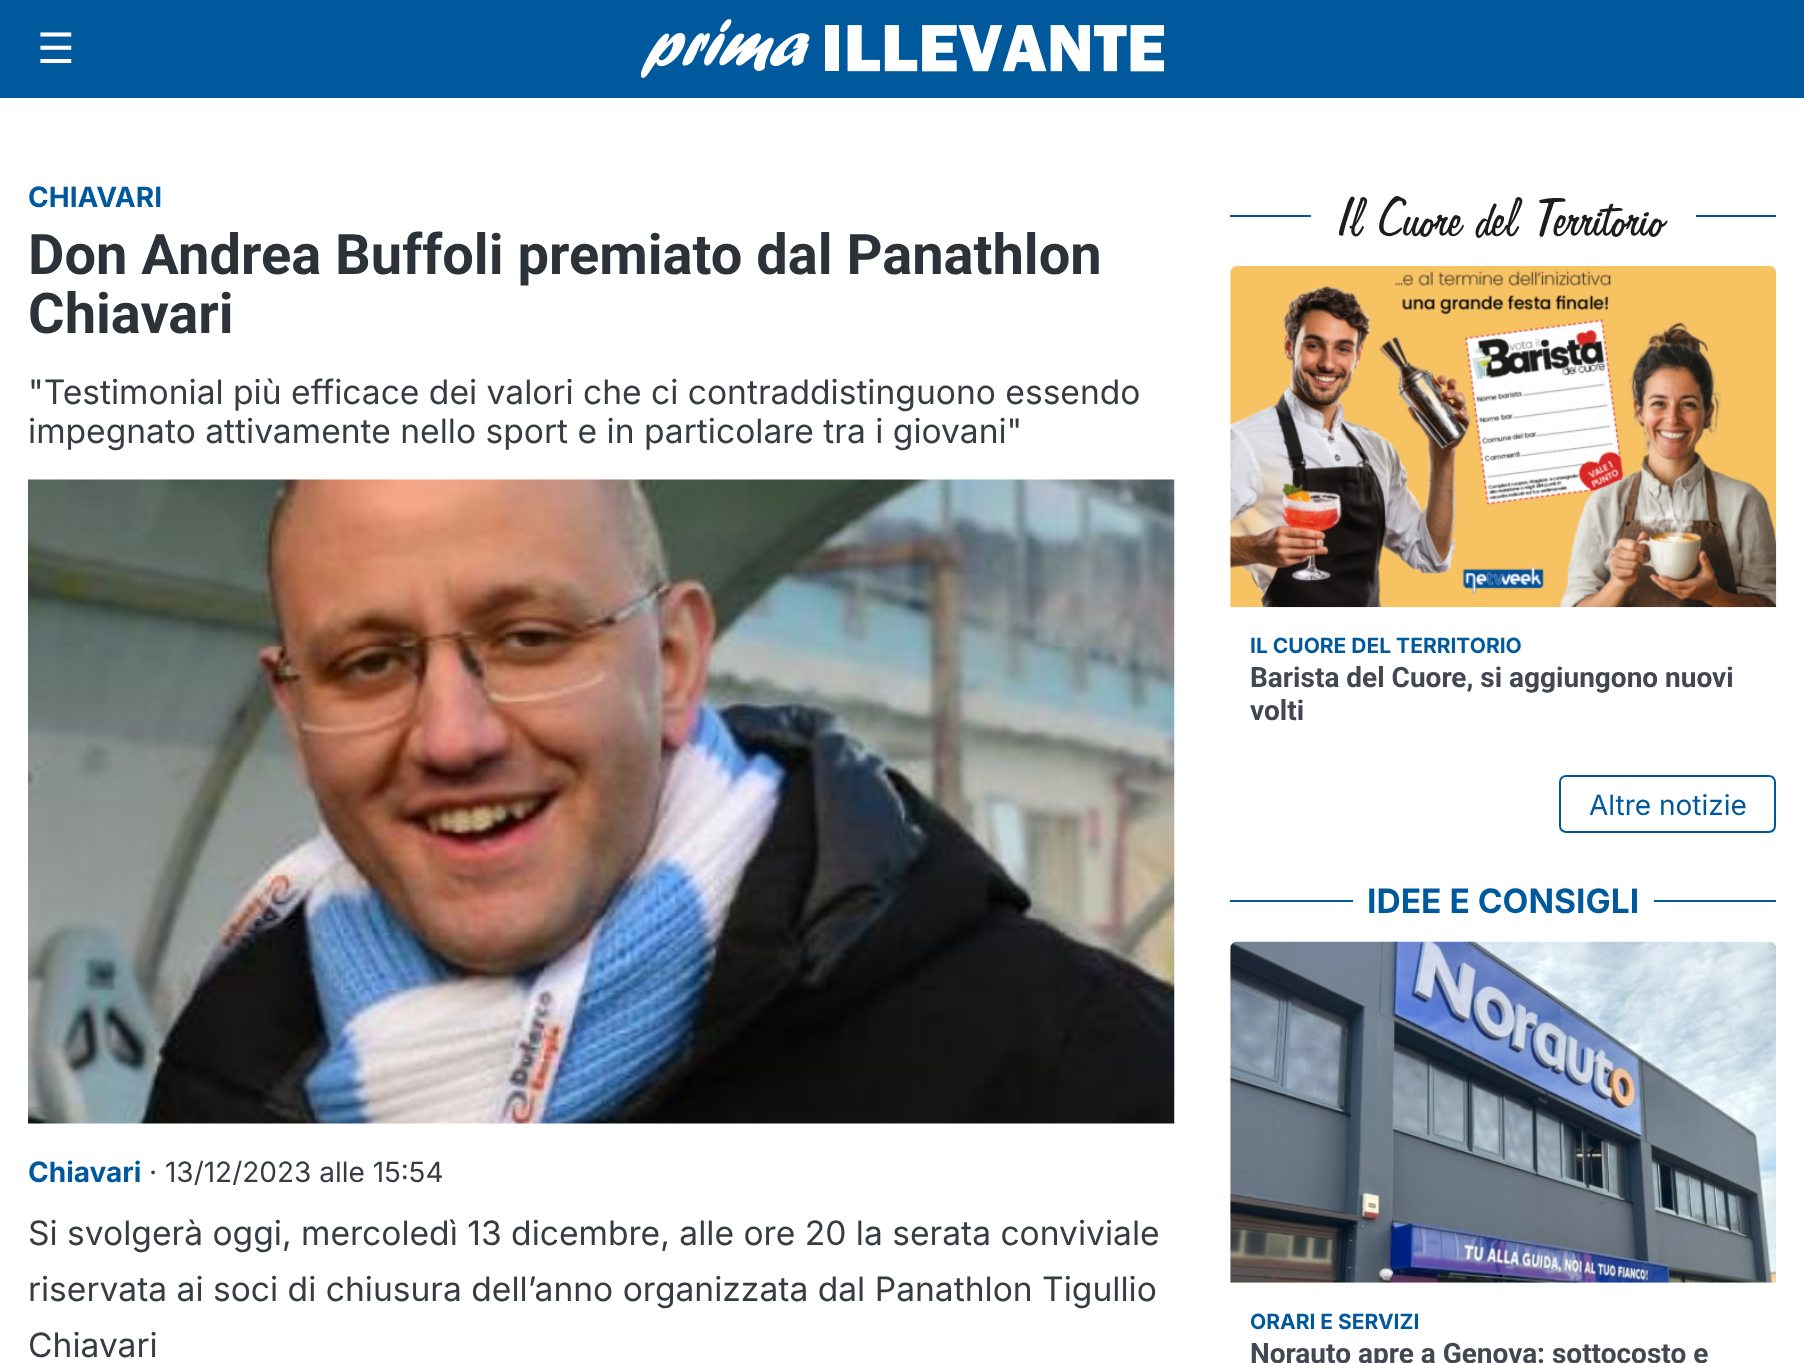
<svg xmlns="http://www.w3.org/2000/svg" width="1804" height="1363">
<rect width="100%" height="100%" fill="#fff"/>
<rect width="1804" height="98" fill="#00599c"/>
<text x="37" y="63" style="font-family:DejaVu Sans;font-size:42px;fill:#fff">☰</text>
<image x="641" y="19" width="523" height="59" href="media/1.png"/>
<text x="28" y="207" style="font-family:Inter;font-size:28px;font-weight:bold;fill:#00599c">CHIAVARI</text>
<text x="28" y="274" style="font-family:Roboto;font-size:56px;font-weight:bold;fill:#2d3138">Don Andrea Buffoli premiato dal Panathlon</text>
<text x="28" y="333" style="font-family:Roboto;font-size:56px;font-weight:bold;fill:#2d3138">Chiavari</text>
<text x="28" y="404" style="font-family:Inter;font-size:33.6px;fill:#373c44">"Testimonial più efficace dei valori che ci contraddistinguono essendo</text>
<text x="28" y="443" style="font-family:Inter;font-size:33.6px;fill:#373c44">impegnato attivamente nello sport e in particolare tra i giovani"</text>
<image x="28" y="479" width="1147" height="645" href="media/2.png"/>
<text x="28" y="1182" style="font-family:Inter;font-size:28px;font-weight:bold;fill:#00599c">Chiavari</text>
<text x="149" y="1182" style="font-family:Inter;font-size:28px;fill:#373c44">· 13/12/2023 alle 15:54</text>
<text x="28" y="1245" style="font-family:Inter;font-size:33.6px;fill:#373c44">Si svolgerà oggi, mercoledì 13 dicembre, alle ore 20 la serata conviviale</text>
<text x="28" y="1301" style="font-family:Inter;font-size:33.6px;fill:#373c44">riservata ai soci di chiusura dell’anno organizzata dal Panathlon Tigullio</text>
<text x="28" y="1357" style="font-family:Inter;font-size:33.6px;fill:#373c44">Chiavari</text>
<rect x="1230" y="215" width="546" height="2" fill="#00599c"/>
<rect x="1311" y="215" width="385" height="2" fill="#fff"/>
<image x="1339" y="196" width="329" height="42" href="media/3.png"/>
<image x="1230" y="266" width="547" height="342" href="media/4.png"/>
<text x="1250" y="653" style="font-family:Inter;font-size:21px;font-weight:bold;fill:#00599c">IL CUORE DEL TERRITORIO</text>
<text x="1250" y="687" style="font-family:Roboto;font-size:28px;font-weight:bold;fill:#424751">Barista del Cuore, si aggiungono nuovi</text>
<text x="1250" y="720" style="font-family:Roboto;font-size:28px;font-weight:bold;fill:#424751">volti</text>
<rect x="1560" y="776" width="215" height="56" rx="6" fill="none" stroke="#00599c" stroke-width="2"/>
<text x="1589" y="815" style="font-family:Inter;font-size:28px;fill:#00599c">Altre notizie</text>
<rect x="1230" y="900" width="546" height="2" fill="#00599c"/>
<rect x="1353" y="900" width="301" height="2" fill="#fff"/>
<text x="1367" y="913" style="font-family:Inter;font-size:33.6px;font-weight:bold;fill:#00599c">IDEE E CONSIGLI</text>
<image x="1230" y="941" width="547" height="342" href="media/5.png"/>
<text x="1250" y="1329" style="font-family:Inter;font-size:21px;font-weight:bold;fill:#00599c">ORARI E SERVIZI</text>
<text x="1250" y="1363" style="font-family:Roboto;font-size:28px;font-weight:bold;fill:#424751">Norauto apre a Genova: sottocosto e</text>
</svg>
